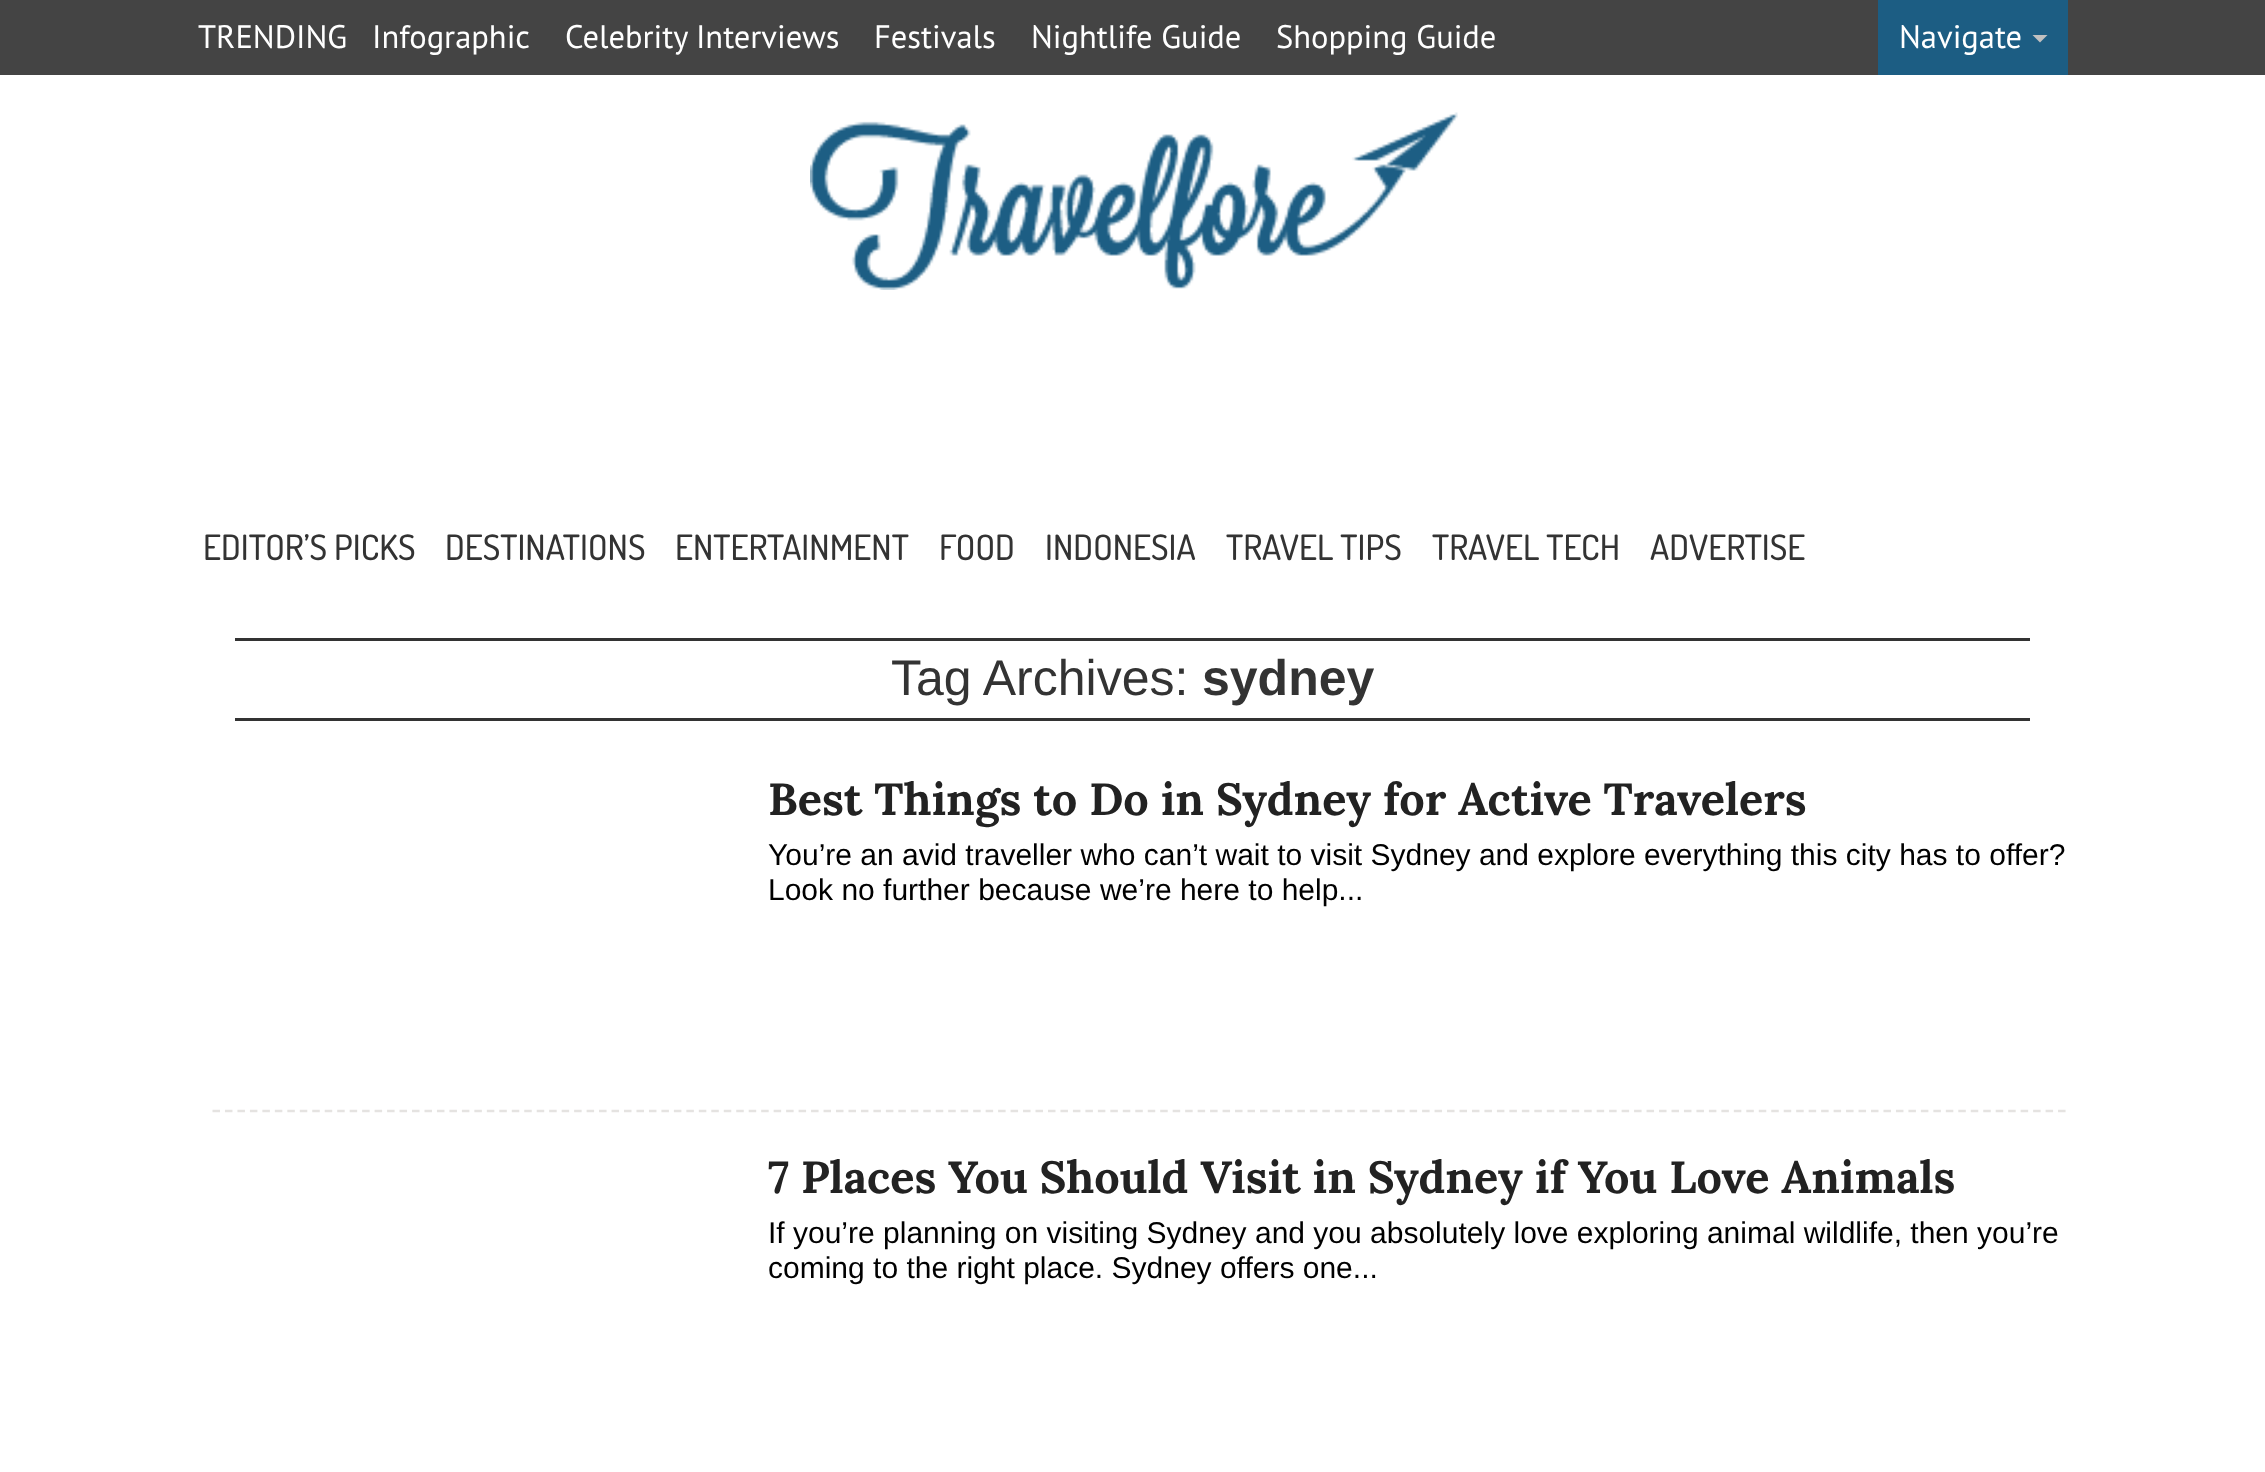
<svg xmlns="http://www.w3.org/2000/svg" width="2265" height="1472">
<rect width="100%" height="100%" fill="#fff"/>
<rect width="2265" height="75" fill="#444"/>
<text x="198" y="48" style="font-family:PT Sans;font-size:32.5px;fill:#fff">TRENDING</text>
<text x="372" y="48" style="font-family:PT Sans;font-size:32.5px;fill:#fff">Infographic</text>
<text x="565" y="48" style="font-family:PT Sans;font-size:32.5px;fill:#fff">Celebrity Interviews</text>
<text x="874" y="48" style="font-family:PT Sans;font-size:32.5px;fill:#fff">Festivals</text>
<text x="1031" y="48" style="font-family:PT Sans;font-size:32.5px;fill:#fff">Nightlife Guide</text>
<text x="1276" y="48" style="font-family:PT Sans;font-size:32.5px;fill:#fff">Shopping Guide</text>
<rect x="1878" width="190" height="75" fill="#1c5d83"/>
<text x="1899" y="48" style="font-family:PT Sans;font-size:32.5px;fill:#fff">Navigate</text>
<path d="M2032.5 35h15l-7.5 7.5z" fill="#c0c0c0"/>
<image x="810" y="112" width="648" height="178" href="media/1.png"/>
<text x="203" y="560" style="font-family:Dosis;font-size:35px;font-weight:500;fill:#333">EDITOR’S PICKS</text>
<text x="445" y="560" style="font-family:Dosis;font-size:35px;font-weight:500;fill:#333">DESTINATIONS</text>
<text x="675" y="560" style="font-family:Dosis;font-size:35px;font-weight:500;fill:#333">ENTERTAINMENT</text>
<text x="939" y="560" style="font-family:Dosis;font-size:35px;font-weight:500;fill:#333">FOOD</text>
<text x="1045" y="560" style="font-family:Dosis;font-size:35px;font-weight:500;fill:#333">INDONESIA</text>
<text x="1226" y="560" style="font-family:Dosis;font-size:35px;font-weight:500;fill:#333">TRAVEL TIPS</text>
<text x="1432" y="560" style="font-family:Dosis;font-size:35px;font-weight:500;fill:#333">TRAVEL TECH</text>
<text x="1650" y="560" style="font-family:Dosis;font-size:35px;font-weight:500;fill:#333">ADVERTISE</text>
<rect x="235" y="638" width="1795" height="3" fill="#333"/>
<rect x="235" y="718" width="1795" height="3" fill="#333"/>
<text x="891" y="695" style="font-family:Liberation Sans;font-size:50px;fill:#333">Tag Archives:</text>
<text x="1202" y="695" style="font-family:Liberation Sans;font-size:50px;font-weight:bold;fill:#333">sydney</text>
<path d="M212.5 1111h1855" fill="none" stroke="#e5e3e1" stroke-width="2.5" stroke-dasharray="7.5 4.97"/>
<text x="768" y="815" style="font-family:Lora;font-size:45px;font-weight:bold;fill:#222">Best Things to Do in Sydney for Active Travelers</text>
<text x="768" y="865" style="font-family:Liberation Sans;font-size:30px;fill:#000">You’re an avid traveller who can’t wait to visit Sydney and explore everything this city has to offer?</text>
<text x="768" y="900" style="font-family:Liberation Sans;font-size:30px;fill:#000">Look no further because we’re here to help...</text>
<text x="768" y="1193" style="font-family:Lora;font-size:45px;font-weight:bold;fill:#222">7 Places You Should Visit in Sydney if You Love Animals</text>
<text x="768" y="1243" style="font-family:Liberation Sans;font-size:30px;fill:#000">If you’re planning on visiting Sydney and you absolutely love exploring animal wildlife, then you’re</text>
<text x="768" y="1278" style="font-family:Liberation Sans;font-size:30px;fill:#000">coming to the right place. Sydney offers one...</text>
</svg>
